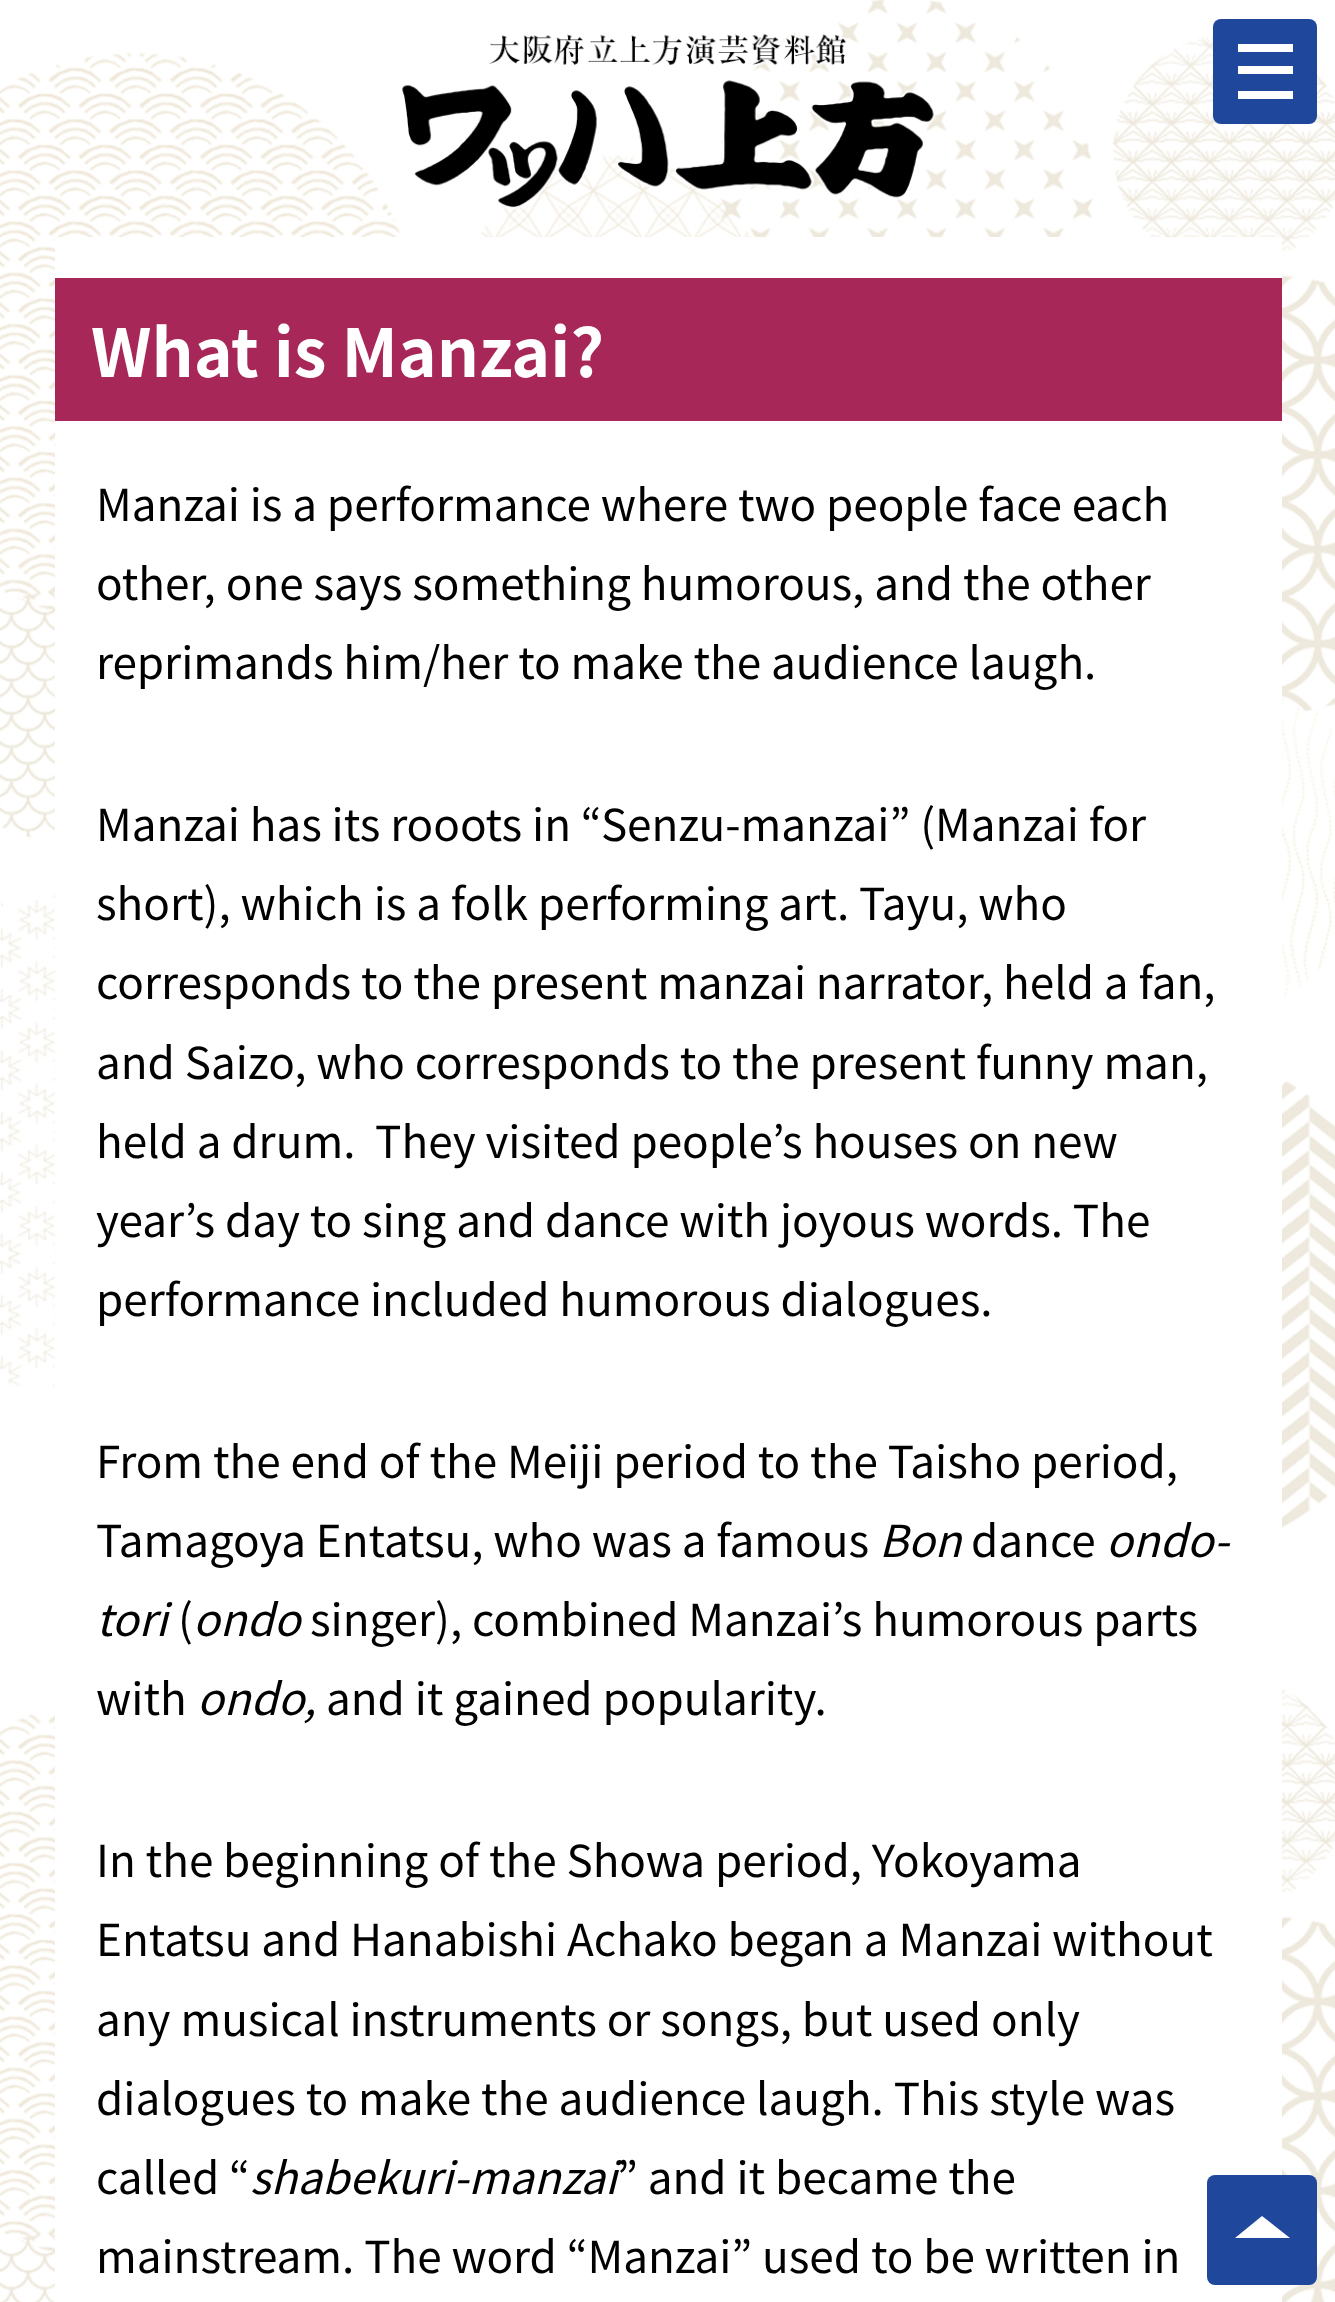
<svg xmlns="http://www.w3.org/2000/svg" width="1335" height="2302">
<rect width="100%" height="100%" fill="#fff"/>
<image x="0" y="0" width="1335" height="2302" href="media/1.png"/>
<image x="402" y="33" width="534" height="176" href="media/2.png"/>
<rect x="1213" y="19" width="104" height="105" rx="8" fill="#1f489d"/>
<rect x="1238" y="66" width="55" height="8" fill="#fff"/>
<rect x="1238" y="44" width="55" height="8" fill="#fff"/>
<rect x="1238" y="91" width="55" height="8" fill="#fff"/>
<rect x="55" y="237" width="1227" height="2065" fill="#fff"/>
<rect x="55" y="278" width="1227" height="143" fill="#a72858"/>
<text x="91" y="377" style="font-family:Noto Sans JP;font-size:66px;font-weight:bold;fill:#fff">What is Manzai?</text>
<text x="96" y="521" style="font-family:Noto Sans JP;font-size:44px;fill:#000">Manzai is a performance where two people face each</text>
<text x="96" y="600" style="font-family:Noto Sans JP;font-size:44px;fill:#000">other, one says something humorous, and the other</text>
<text x="96" y="679" style="font-family:Noto Sans JP;font-size:44px;fill:#000">reprimands him/her to make the audience laugh.</text>
<text x="96" y="841" style="font-family:Noto Sans JP;font-size:44px;fill:#000">Manzai has its rooots in “Senzu-manzai” (Manzai for</text>
<text x="96" y="920" style="font-family:Noto Sans JP;font-size:44px;fill:#000">short), which is a folk performing art. Tayu, who</text>
<text x="96" y="999" style="font-family:Noto Sans JP;font-size:44px;fill:#000">corresponds to the present manzai narrator, held a fan,</text>
<text x="96" y="1079" style="font-family:Noto Sans JP;font-size:44px;fill:#000">and Saizo, who corresponds to the present funny man,</text>
<text x="96" y="1158" style="font-family:Noto Sans JP;font-size:44px;fill:#000" xml:space="preserve">held a drum.  They visited people’s houses on new</text>
<text x="96" y="1237" style="font-family:Noto Sans JP;font-size:44px;fill:#000">year’s day to sing and dance with joyous words. The</text>
<text x="96" y="1316" style="font-family:Noto Sans JP;font-size:44px;fill:#000">performance included humorous dialogues.</text>
<text x="96" y="1478" style="font-family:Noto Sans JP;font-size:44px;fill:#000">From the end of the Meiji period to the Taisho period,</text>
<text x="96" y="1557" style="font-family:Noto Sans JP;font-size:44px;fill:#000">Tamagoya Entatsu, who was a famous</text>
<text x="879" y="1557" style="font-family:Noto Sans JP;font-size:44px;font-style:italic;fill:#000">Bon</text>
<text x="971" y="1557" style="font-family:Noto Sans JP;font-size:44px;fill:#000">dance</text>
<text x="1106" y="1557" style="font-family:Noto Sans JP;font-size:44px;font-style:italic;fill:#000">ondo-</text>
<text x="96" y="1636" style="font-family:Noto Sans JP;font-size:44px;font-style:italic;fill:#000">tori</text>
<text x="178" y="1636" style="font-family:Noto Sans JP;font-size:44px;fill:#000">(</text>
<text x="193" y="1636" style="font-family:Noto Sans JP;font-size:44px;font-style:italic;fill:#000">ondo</text>
<text x="310" y="1636" style="font-family:Noto Sans JP;font-size:44px;fill:#000">singer), combined Manzai’s humorous parts</text>
<text x="96" y="1715" style="font-family:Noto Sans JP;font-size:44px;fill:#000">with</text>
<text x="197" y="1715" style="font-family:Noto Sans JP;font-size:44px;font-style:italic;fill:#000">ondo,</text>
<text x="326" y="1715" style="font-family:Noto Sans JP;font-size:44px;fill:#000">and it gained popularity.</text>
<text x="96" y="1877" style="font-family:Noto Sans JP;font-size:44px;fill:#000">In the beginning of the Showa period, Yokoyama</text>
<text x="96" y="1956" style="font-family:Noto Sans JP;font-size:44px;fill:#000">Entatsu and Hanabishi Achako began a Manzai without</text>
<text x="96" y="2036" style="font-family:Noto Sans JP;font-size:44px;fill:#000">any musical instruments or songs, but used only</text>
<text x="96" y="2115" style="font-family:Noto Sans JP;font-size:44px;fill:#000">dialogues to make the audience laugh. This style was</text>
<text x="96" y="2194" style="font-family:Noto Sans JP;font-size:44px;fill:#000">called “</text>
<text x="250" y="2194" style="font-family:Noto Sans JP;font-size:44px;font-style:italic;fill:#000">shabekuri-manzai</text>
<text x="617" y="2194" style="font-family:Noto Sans JP;font-size:44px;fill:#000">” and it became the</text>
<text x="96" y="2273" style="font-family:Noto Sans JP;font-size:44px;fill:#000">mainstream. The word “Manzai” used to be written in</text>
<rect x="1207" y="2175" width="110" height="110" rx="8" fill="#1f489d"/>
<path d="M1290 2238h-55l27-22z" fill="#fff"/>
</svg>
